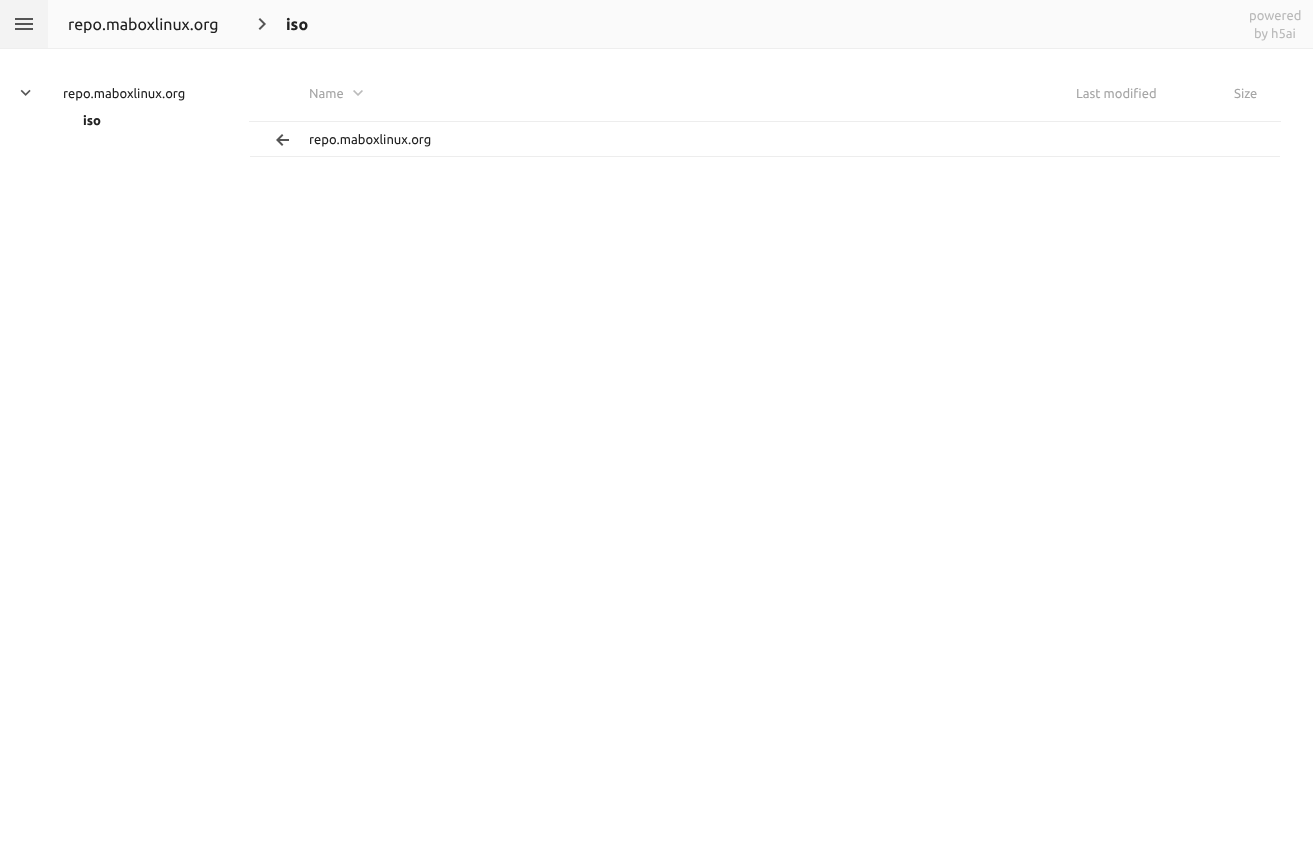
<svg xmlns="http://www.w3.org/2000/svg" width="1313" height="845">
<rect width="100%" height="100%" fill="#fff"/>
<rect x="48" width="1265" height="48" fill="#fafafa"/>
<rect y="48" width="1313" height="1" fill="#eee"/>
<rect width="48" height="48" fill="#f3f3f3"/>
<image x="15" y="18" width="18" height="12" href="media/1.png"/>
<text x="68" y="30" style="font-family:Ubuntu;font-size:16px;fill:#212121">repo.maboxlinux.org</text>
<image x="258" y="18" width="8" height="12" href="media/2.png"/>
<text x="286" y="30" style="font-family:Ubuntu;font-size:16px;font-weight:bold;fill:#212121">iso</text>
<text x="1249" y="20" style="font-family:Ubuntu;font-size:13px;fill:#b9b9b9">powered</text>
<text x="1254" y="38" style="font-family:Ubuntu;font-size:13px;fill:#b9b9b9">by h5ai</text>
<image x="20" y="89" width="11" height="7" href="media/3.png"/>
<text x="63" y="98" style="font-family:Ubuntu;font-size:13px;fill:#212121">repo.maboxlinux.org</text>
<text x="83" y="125" style="font-family:Ubuntu;font-size:13px;font-weight:bold;fill:#212121">iso</text>
<rect x="249" y="121" width="1032" height="1" fill="#ededed"/>
<text x="309" y="98" style="font-family:Ubuntu;font-size:13px;fill:#a6a6a6">Name</text>
<image x="353" y="90" width="10" height="6" href="media/4.png"/>
<text x="1076" y="98" style="font-family:Ubuntu;font-size:13px;fill:#a6a6a6">Last modified</text>
<text x="1234" y="98" style="font-family:Ubuntu;font-size:13px;fill:#a6a6a6">Size</text>
<rect x="250" y="156" width="1030" height="1" fill="#ededed"/>
<image x="276" y="134" width="13" height="12" href="media/5.png"/>
<text x="309" y="144" style="font-family:Ubuntu;font-size:13px;fill:#212121">repo.maboxlinux.org</text>
</svg>
